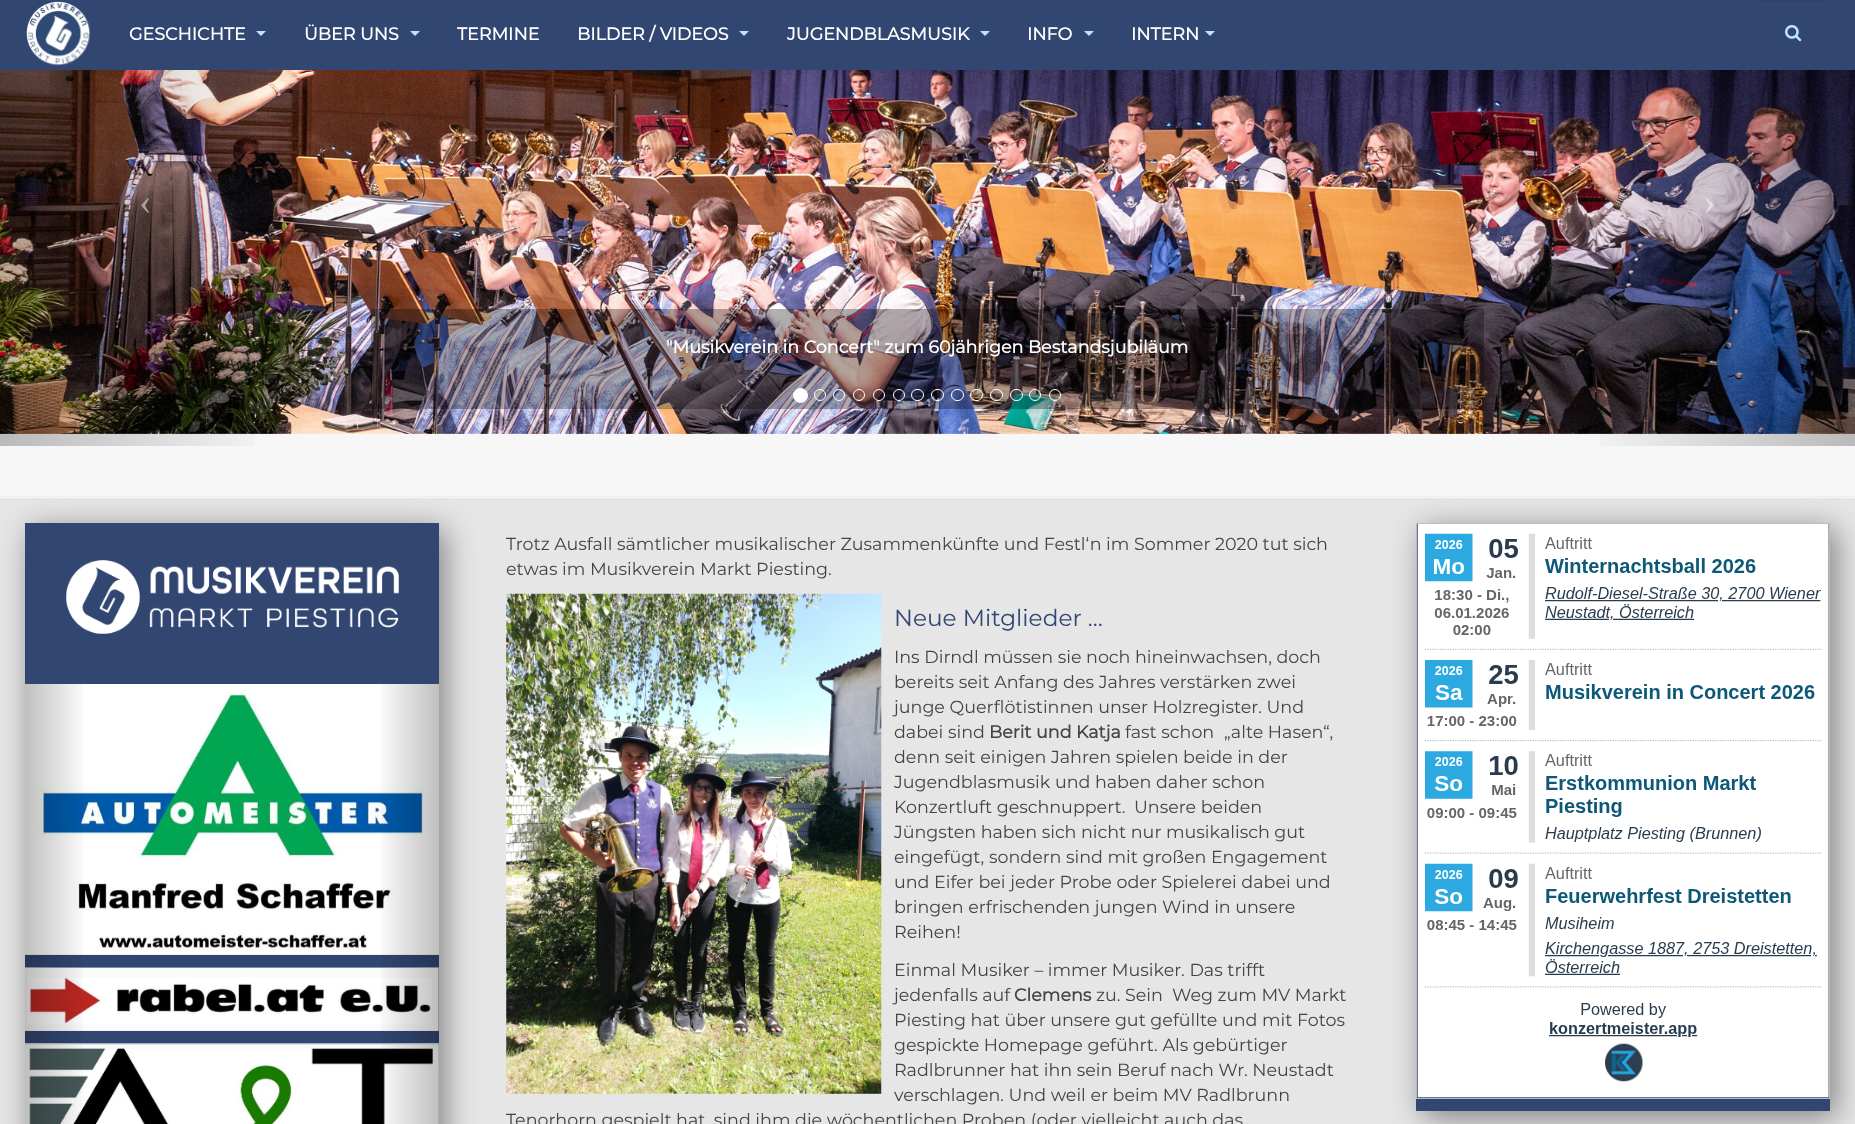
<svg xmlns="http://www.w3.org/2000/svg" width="1855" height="1124">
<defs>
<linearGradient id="g1" gradientUnits="userSpaceOnUse" x1="0" y1="195" x2="279" y2="195"><stop offset="0" stop-color="#000" stop-opacity="0.25"/><stop offset="1" stop-color="#000" stop-opacity="0"/></linearGradient>
<linearGradient id="g2" gradientUnits="userSpaceOnUse" x1="1576" y1="195" x2="1855" y2="195"><stop offset="0" stop-color="#000" stop-opacity="0"/><stop offset="1" stop-color="#000" stop-opacity="0.25"/></linearGradient>
<linearGradient id="g3" gradientUnits="userSpaceOnUse" x1="25" y1="826" x2="88" y2="826"><stop offset="0" stop-color="#000" stop-opacity="0.25"/><stop offset="1" stop-color="#000" stop-opacity="0"/></linearGradient>
<linearGradient id="g4" gradientUnits="userSpaceOnUse" x1="376" y1="826" x2="439" y2="826"><stop offset="0" stop-color="#000" stop-opacity="0"/><stop offset="1" stop-color="#000" stop-opacity="0.25"/></linearGradient>
<linearGradient id="g5" gradientUnits="userSpaceOnUse" x1="25" y1="1006" x2="88" y2="1006"><stop offset="0" stop-color="#000" stop-opacity="0.25"/><stop offset="1" stop-color="#000" stop-opacity="0"/></linearGradient>
<linearGradient id="g6" gradientUnits="userSpaceOnUse" x1="376" y1="1006" x2="439" y2="1006"><stop offset="0" stop-color="#000" stop-opacity="0"/><stop offset="1" stop-color="#000" stop-opacity="0.25"/></linearGradient>
<linearGradient id="g7" gradientUnits="userSpaceOnUse" x1="25" y1="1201" x2="88" y2="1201"><stop offset="0" stop-color="#000" stop-opacity="0.25"/><stop offset="1" stop-color="#000" stop-opacity="0"/></linearGradient>
<linearGradient id="g8" gradientUnits="userSpaceOnUse" x1="376" y1="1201" x2="439" y2="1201"><stop offset="0" stop-color="#000" stop-opacity="0"/><stop offset="1" stop-color="#000" stop-opacity="0.25"/></linearGradient>
</defs>
<rect width="100%" height="100%" fill="#e6e6e6"/>
<rect width="1855" height="70" fill="#314671"/>
<image x="25" y="0" width="66" height="66" href="media/1.png"/>
<rect x="1760" width="69" height="1" fill="#2d4169"/>
<image x="1785" y="25" width="17" height="17" href="media/2.png"/>
<text x="129" y="40" style="font-family:Montserrat;font-size:17.5px;font-weight:bold;fill:#fff">GESCHICHTE</text>
<path d="M256 31h10l-5 5z" fill="#bbe6ff"/>
<text x="304" y="40" style="font-family:Montserrat;font-size:17.5px;font-weight:bold;fill:#fff">ÜBER UNS</text>
<path d="M410 31h10l-5 5z" fill="#bbe6ff"/>
<text x="457" y="40" style="font-family:Montserrat;font-size:17.5px;font-weight:bold;fill:#fff">TERMINE</text>
<text x="577" y="40" style="font-family:Montserrat;font-size:17.5px;font-weight:bold;fill:#fff">BILDER / VIDEOS</text>
<path d="M739 31h10l-5 5z" fill="#bbe6ff"/>
<text x="787" y="40" style="font-family:Montserrat;font-size:17.5px;font-weight:bold;fill:#fff">JUGENDBLASMUSIK</text>
<path d="M980 31h10l-5 5z" fill="#bbe6ff"/>
<text x="1027" y="40" style="font-family:Montserrat;font-size:17.5px;font-weight:bold;fill:#fff">INFO</text>
<path d="M1084 31h10l-5 5z" fill="#bbe6ff"/>
<text x="1131" y="40" style="font-family:Montserrat;font-size:17.5px;font-weight:bold;fill:#fff">INTERN</text>
<path d="M1205 31h10l-5 5z" fill="#bbe6ff"/>
<rect y="433" width="1855" height="65" fill="#f7f7f7"/>
<rect y="496" width="1855" height="1" fill="#eee"/>
<image x="0" y="70" width="1855" height="364" href="media/3.png"/>
<rect y="70" width="255" height="376" fill="url(#g1)"/>
<text x="139" y="214" style="font-family:Liberation Serif;font-size:38px;fill:#aba09e">‹</text>
<rect x="1600" y="70" width="255" height="376" fill="url(#g2)"/>
<text x="1703" y="214" style="font-family:Liberation Serif;font-size:38px;fill:#e5dfe4">›</text>
<rect x="371" y="309" width="1113" height="100" fill="#0000004d"/>
<text x="666" y="353" style="font-family:Montserrat;font-size:17.5px;font-weight:bold;fill:#fff">"Musikverein in Concert" zum 60jährigen Bestandsjubiläum</text>
<circle cx="800.5" cy="395.5" r="7" fill="#fff" stroke="#fff"/>
<circle cx="820" cy="395" r="5.5" fill="none" stroke="#fff"/>
<circle cx="839" cy="395" r="5.5" fill="none" stroke="#fff"/>
<circle cx="859" cy="395" r="5.5" fill="none" stroke="#fff"/>
<circle cx="879" cy="395" r="5.5" fill="none" stroke="#fff"/>
<circle cx="899" cy="395" r="5.5" fill="none" stroke="#fff"/>
<rect x="911.5" y="389.5" width="12" height="11" rx="5.5" fill="none" stroke="#fff"/>
<rect x="931.5" y="389.5" width="12" height="11" rx="5.5" fill="none" stroke="#fff"/>
<rect x="951.5" y="389.5" width="12" height="11" rx="5.5" fill="none" stroke="#fff"/>
<rect x="970.5" y="389.5" width="12" height="11" rx="5.5" fill="none" stroke="#fff"/>
<rect x="990.5" y="389.5" width="12" height="11" rx="5.5" fill="none" stroke="#fff"/>
<rect x="1010.5" y="389.5" width="12" height="11" rx="5.5" fill="none" stroke="#fff"/>
<circle cx="1035" cy="395" r="5.5" fill="none" stroke="#fff"/>
<circle cx="1055" cy="395" r="5.5" fill="none" stroke="#fff"/>
<rect x="31" y="529" width="414" height="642" fill="#808080" filter="blur(15.5px)"/>
<rect x="25" y="523" width="414" height="601" fill="#314671"/>
<image x="66" y="560" width="333" height="74" href="media/4.png"/>
<image x="25" y="684" width="414" height="271" href="media/5.png"/>
<rect x="25" y="684" width="58" height="284" fill="url(#g3)"/>
<rect x="381" y="684" width="58" height="284" fill="url(#g4)"/>
<image x="25" y="967" width="414" height="64" href="media/6.png"/>
<rect x="25" y="968" width="58" height="76" fill="url(#g5)"/>
<rect x="381" y="968" width="58" height="76" fill="url(#g6)"/>
<image x="25" y="1043" width="414" height="81" href="media/7.png"/>
<rect x="25" y="1044" width="58" height="80" fill="url(#g7)"/>
<rect x="381" y="1044" width="58" height="80" fill="url(#g8)"/>
<text x="506" y="550" style="font-family:Montserrat;font-size:17.5px;font-weight:100;fill:#444">Trotz Ausfall sämtlicher musikalischer Zusammenkünfte und Festl‘n im Sommer 2020 tut sich</text>
<text x="506" y="575" style="font-family:Montserrat;font-size:17.5px;font-weight:100;fill:#444">etwas im Musikverein Markt Piesting.</text>
<image x="506" y="593" width="376" height="501" href="media/8.png"/>
<text x="894" y="626" style="font-family:Montserrat;font-size:23.25px;font-weight:100;fill:#314671">Neue Mitglieder …</text>
<text x="894" y="663" style="font-family:Montserrat;font-size:17.5px;font-weight:100;fill:#444">Ins Dirndl müssen sie noch hineinwachsen, doch</text>
<text x="894" y="688" style="font-family:Montserrat;font-size:17.5px;font-weight:100;fill:#444">bereits seit Anfang des Jahres verstärken zwei</text>
<text x="894" y="713" style="font-family:Montserrat;font-size:17.5px;font-weight:100;fill:#444">junge Querflötistinnen unser Holzregister. Und</text>
<text x="894" y="738" style="font-family:Montserrat;font-size:17.5px;font-weight:100;fill:#444">dabei sind</text>
<text x="989" y="738" style="font-family:Montserrat;font-size:17.5px;font-weight:bold;fill:#444">Berit und Katja</text>
<text x="1125" y="738" style="font-family:Montserrat;font-size:17.5px;font-weight:100;fill:#444">fast schon</text>
<text x="1224" y="738" style="font-family:Montserrat;font-size:17.5px;font-weight:100;fill:#444">„alte Hasen“,</text>
<text x="894" y="763" style="font-family:Montserrat;font-size:17.5px;font-weight:100;fill:#444">denn seit einigen Jahren spielen beide in der</text>
<text x="894" y="788" style="font-family:Montserrat;font-size:17.5px;font-weight:100;fill:#444">Jugendblasmusik und haben daher schon</text>
<text x="894" y="813" style="font-family:Montserrat;font-size:17.5px;font-weight:100;fill:#444">Konzertluft geschnuppert.</text>
<text x="1134" y="813" style="font-family:Montserrat;font-size:17.5px;font-weight:100;fill:#444">Unsere beiden</text>
<text x="894" y="838" style="font-family:Montserrat;font-size:17.5px;font-weight:100;fill:#444">Jüngsten haben sich nicht nur musikalisch gut</text>
<text x="894" y="863" style="font-family:Montserrat;font-size:17.5px;font-weight:100;fill:#444">eingefügt, sondern sind mit großen Engagement</text>
<text x="894" y="888" style="font-family:Montserrat;font-size:17.5px;font-weight:100;fill:#444">und Eifer bei jeder Probe oder Spielerei dabei und</text>
<text x="894" y="913" style="font-family:Montserrat;font-size:17.5px;font-weight:100;fill:#444">bringen erfrischenden jungen Wind in unsere</text>
<text x="894" y="938" style="font-family:Montserrat;font-size:17.5px;font-weight:100;fill:#444">Reihen!</text>
<text x="894" y="976" style="font-family:Montserrat;font-size:17.5px;font-weight:100;fill:#444">Einmal Musiker – immer Musiker. Das trifft</text>
<text x="894" y="1001" style="font-family:Montserrat;font-size:17.5px;font-weight:100;fill:#444">jedenfalls auf</text>
<text x="1014" y="1001" style="font-family:Montserrat;font-size:17.5px;font-weight:bold;fill:#444">Clemens</text>
<text x="1096" y="1001" style="font-family:Montserrat;font-size:17.5px;font-weight:100;fill:#444">zu. Sein</text>
<text x="1172" y="1001" style="font-family:Montserrat;font-size:17.5px;font-weight:100;fill:#444">Weg zum MV Markt</text>
<text x="894" y="1026" style="font-family:Montserrat;font-size:17.5px;font-weight:100;fill:#444">Piesting hat über unsere gut gefüllte und mit Fotos</text>
<text x="894" y="1051" style="font-family:Montserrat;font-size:17.5px;font-weight:100;fill:#444">gespickte Homepage geführt. Als gebürtiger</text>
<text x="894" y="1076" style="font-family:Montserrat;font-size:17.5px;font-weight:100;fill:#444">Radlbrunner hat ihn sein Beruf nach Wr. Neustadt</text>
<text x="894" y="1101" style="font-family:Montserrat;font-size:17.5px;font-weight:100;fill:#444">verschlagen. Und weil er beim MV Radlbrunn</text>
<text x="506" y="1126" style="font-family:Montserrat;font-size:17.5px;font-weight:100;fill:#444">Tenorhorn gespielt hat, sind ihm die wöchentlichen Proben (oder vielleicht auch das</text>
<rect x="1423" y="529" width="413" height="589" fill="#808080" filter="blur(15.5px)"/>
<rect x="1416" y="524" width="414" height="587" fill="#314671"/>
<rect x="1416.5" y="523.5" width="413" height="575" fill="none" stroke="#bbb"/>
<image x="1417" y="523" width="412" height="575" href="media/9.png"/>
</svg>
